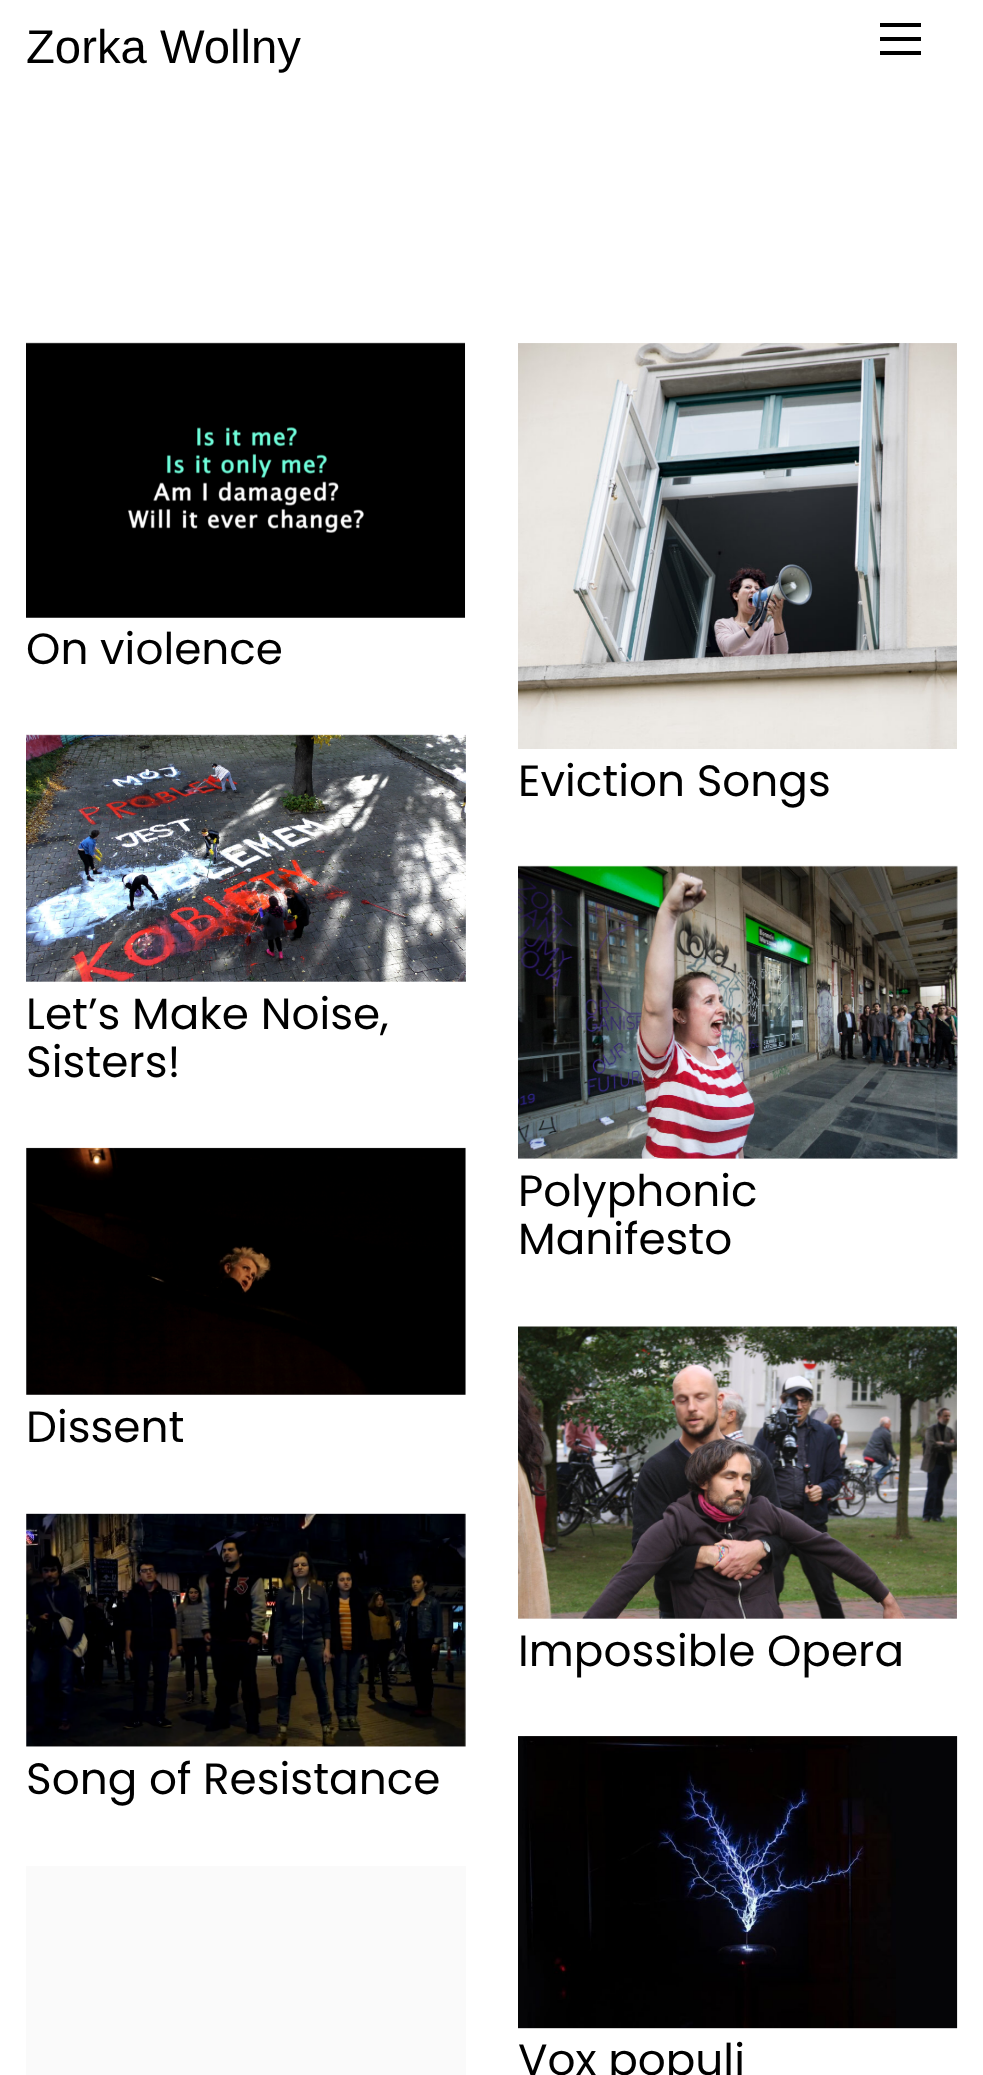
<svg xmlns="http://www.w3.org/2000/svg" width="983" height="2075">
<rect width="100%" height="100%" fill="#fff"/>
<text x="26" y="63" style="font-family:Liberation Sans;font-size:47.25px;fill:#000">Zorka Wollny</text>
<rect x="880" y="37" width="41" height="4" fill="#000"/>
<rect x="880" y="23" width="41" height="4" fill="#000"/>
<rect x="880" y="51" width="41" height="4" fill="#000"/>
<rect x="26" y="343" width="440" height="275" fill="#fafafa"/>
<image x="26" y="342" width="439" height="276" href="media/1.png"/>
<text x="26" y="664" style="font-family:Poppins;font-size:43.75px;fill:#000">On violence</text>
<image x="518" y="343" width="439" height="406" href="media/2.png"/>
<text x="518" y="796" style="font-family:Poppins;font-size:43.75px;fill:#000">Eviction Songs</text>
<rect x="26" y="735" width="440" height="247" fill="#fafafa"/>
<image x="26" y="734" width="440" height="248" href="media/3.png"/>
<text x="26" y="1029" style="font-family:Poppins;font-size:43.75px;fill:#000">Let’s Make Noise,</text>
<text x="26" y="1077" style="font-family:Poppins;font-size:43.75px;fill:#000">Sisters!</text>
<rect x="518" y="866" width="439" height="293" fill="#fafafa"/>
<image x="518" y="865" width="440" height="294" href="media/4.png"/>
<text x="518" y="1206" style="font-family:Poppins;font-size:43.75px;fill:#000">Polyphonic</text>
<text x="518" y="1254" style="font-family:Poppins;font-size:43.75px;fill:#000">Manifesto</text>
<rect x="26" y="1148" width="440" height="247" fill="#fafafa"/>
<image x="26" y="1147" width="440" height="248" href="media/5.png"/>
<text x="26" y="1442" style="font-family:Poppins;font-size:43.75px;fill:#000">Dissent</text>
<rect x="518" y="1327" width="439" height="292" fill="#fafafa"/>
<image x="518" y="1326" width="439" height="293" href="media/6.png"/>
<text x="518" y="1666" style="font-family:Poppins;font-size:43.75px;fill:#000">Impossible Opera</text>
<rect x="26" y="1514" width="440" height="233" fill="#fafafa"/>
<image x="26" y="1513" width="440" height="234" href="media/7.png"/>
<text x="26" y="1794" style="font-family:Poppins;font-size:43.75px;fill:#000">Song of Resistance</text>
<rect x="26" y="1866" width="440" height="209" fill="#fafafa"/>
<image x="518" y="1736" width="440" height="293" href="media/8.png"/>
<text x="518" y="2075" style="font-family:Poppins;font-size:43.75px;fill:#000">Vox populi</text>
</svg>
